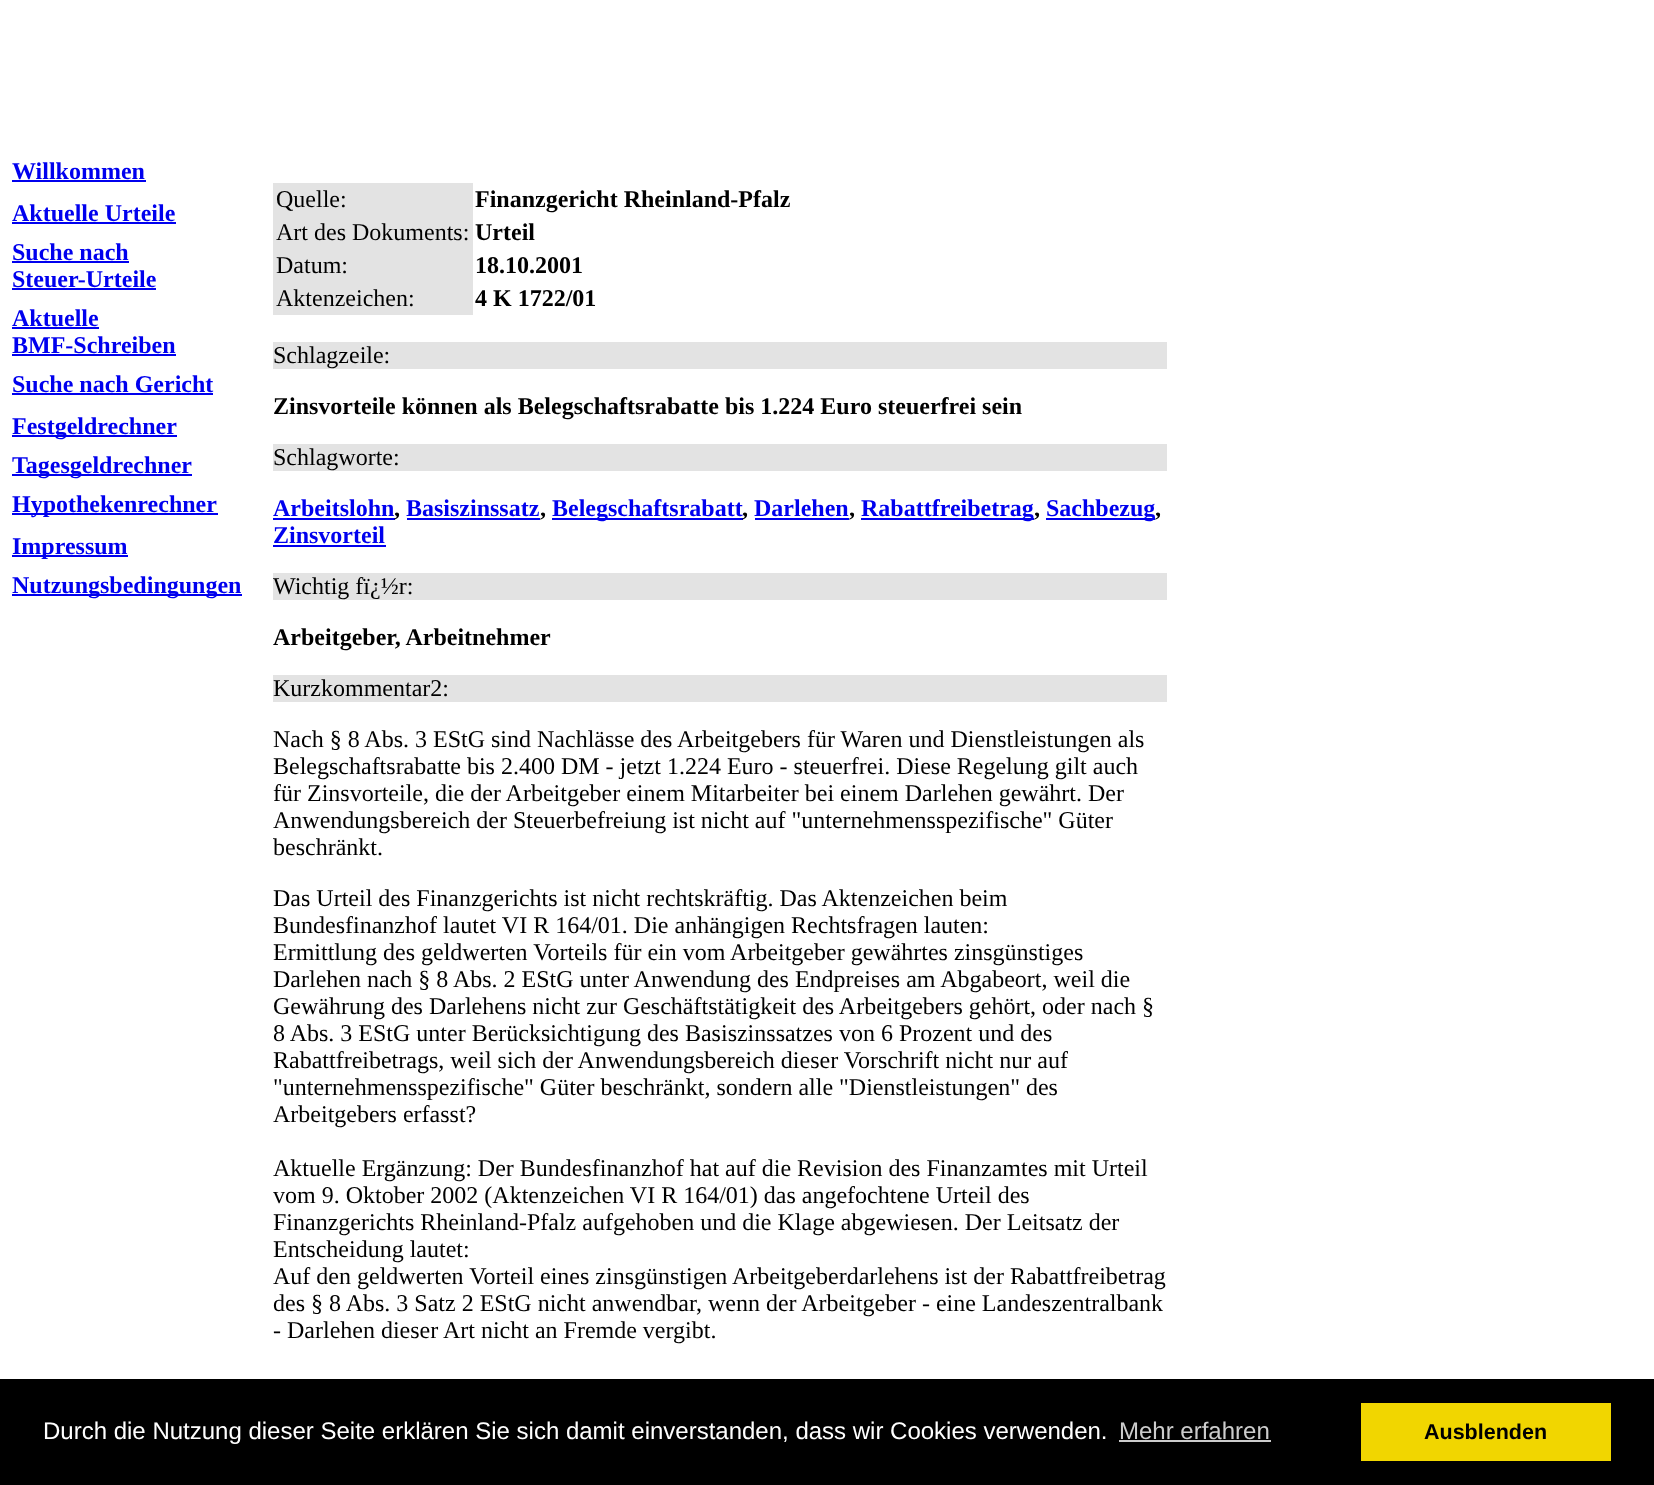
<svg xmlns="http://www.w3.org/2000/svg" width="1654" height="1485">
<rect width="100%" height="100%" fill="#fff"/>
<text x="12" y="179" style="font-family:Liberation Serif;font-size:24px;font-weight:bold;fill:#00e">Willkommen</text>
<rect x="12" y="180" width="134" height="2" fill="#00e"/>
<text x="12" y="221" style="font-family:Liberation Serif;font-size:24px;font-weight:bold;fill:#00e">Aktuelle Urteile</text>
<rect x="12" y="222" width="164" height="2" fill="#00e"/>
<text x="12" y="260" style="font-family:Liberation Serif;font-size:24px;font-weight:bold;fill:#00e">Suche nach</text>
<rect x="12" y="261" width="117" height="2" fill="#00e"/>
<text x="12" y="287" style="font-family:Liberation Serif;font-size:24px;font-weight:bold;fill:#00e">Steuer-Urteile</text>
<rect x="12" y="288" width="144" height="2" fill="#00e"/>
<text x="12" y="326" style="font-family:Liberation Serif;font-size:24px;font-weight:bold;fill:#00e">Aktuelle</text>
<rect x="12" y="327" width="87" height="2" fill="#00e"/>
<text x="12" y="353" style="font-family:Liberation Serif;font-size:24px;font-weight:bold;fill:#00e">BMF-Schreiben</text>
<rect x="12" y="354" width="164" height="2" fill="#00e"/>
<text x="12" y="392" style="font-family:Liberation Serif;font-size:24px;font-weight:bold;fill:#00e">Suche nach Gericht</text>
<rect x="12" y="393" width="201" height="2" fill="#00e"/>
<rect x="12" y="435" width="165" height="2" fill="#00e"/>
<text x="12" y="434" style="font-family:Liberation Serif;font-size:24px;font-weight:bold;fill:#00e">Festgeldrechner</text>
<rect x="12" y="474" width="180" height="2" fill="#00e"/>
<text x="12" y="473" style="font-family:Liberation Serif;font-size:24px;font-weight:bold;fill:#00e">Tagesgeldrechner</text>
<rect x="12" y="513" width="206" height="2" fill="#00e"/>
<text x="12" y="512" style="font-family:Liberation Serif;font-size:24px;font-weight:bold;fill:#00e">Hypothekenrechner</text>
<rect x="12" y="555" width="116" height="2" fill="#00e"/>
<text x="12" y="554" style="font-family:Liberation Serif;font-size:24px;font-weight:bold;fill:#00e">Impressum</text>
<rect x="12" y="594" width="230" height="2" fill="#00e"/>
<text x="12" y="593" style="font-family:Liberation Serif;font-size:24px;font-weight:bold;fill:#00e">Nutzungsbedingungen</text>
<rect x="273" y="183" width="200" height="132" fill="#e3e3e3"/>
<text x="276" y="207" style="font-family:Liberation Serif;font-size:24px;fill:#000">Quelle:</text>
<text x="475" y="207" style="font-family:Liberation Serif;font-size:24px;font-weight:bold;fill:#000">Finanzgericht Rheinland-Pfalz</text>
<text x="276" y="240" style="font-family:Liberation Serif;font-size:24px;fill:#000">Art des Dokuments:</text>
<text x="475" y="240" style="font-family:Liberation Serif;font-size:24px;font-weight:bold;fill:#000">Urteil</text>
<text x="276" y="273" style="font-family:Liberation Serif;font-size:24px;fill:#000">Datum:</text>
<text x="475" y="273" style="font-family:Liberation Serif;font-size:24px;font-weight:bold;fill:#000">18.10.2001</text>
<text x="276" y="306" style="font-family:Liberation Serif;font-size:24px;fill:#000">Aktenzeichen:</text>
<text x="475" y="306" style="font-family:Liberation Serif;font-size:24px;font-weight:bold;fill:#000">4 K 1722/01</text>
<rect x="273" y="342" width="894" height="27" fill="#e3e3e3"/>
<text x="273" y="363" style="font-family:Liberation Serif;font-size:24px;fill:#000">Schlagzeile:</text>
<text x="273" y="414" style="font-family:Liberation Serif;font-size:24px;font-weight:bold;fill:#000">Zinsvorteile können als Belegschaftsrabatte bis 1.224 Euro steuerfrei sein</text>
<rect x="273" y="444" width="894" height="27" fill="#e3e3e3"/>
<text x="273" y="465" style="font-family:Liberation Serif;font-size:24px;fill:#000">Schlagworte:</text>
<text x="273" y="516" style="font-family:Liberation Serif;font-size:24px;font-weight:bold;fill:#00e">Arbeitslohn</text>
<rect x="273" y="518" width="122" height="2" fill="#00e"/>
<text x="394" y="516" style="font-family:Liberation Serif;font-size:24px;font-weight:bold;fill:#000">,</text>
<text x="406" y="516" style="font-family:Liberation Serif;font-size:24px;font-weight:bold;fill:#00e">Basiszinssatz</text>
<text x="540" y="516" style="font-family:Liberation Serif;font-size:24px;font-weight:bold;fill:#000">,</text>
<rect x="407" y="518" width="133" height="2" fill="#00e"/>
<rect x="552" y="518" width="191" height="2" fill="#00e"/>
<text x="552" y="516" style="font-family:Liberation Serif;font-size:24px;font-weight:bold;fill:#00e">Belegschaftsrabatt</text>
<text x="742" y="516" style="font-family:Liberation Serif;font-size:24px;font-weight:bold;fill:#000">,</text>
<text x="754" y="516" style="font-family:Liberation Serif;font-size:24px;font-weight:bold;fill:#00e">Darlehen</text>
<text x="849" y="516" style="font-family:Liberation Serif;font-size:24px;font-weight:bold;fill:#000">,</text>
<rect x="755" y="518" width="94" height="2" fill="#00e"/>
<rect x="861" y="518" width="173" height="2" fill="#00e"/>
<text x="861" y="516" style="font-family:Liberation Serif;font-size:24px;font-weight:bold;fill:#00e">Rabattfreibetrag</text>
<text x="1034" y="516" style="font-family:Liberation Serif;font-size:24px;font-weight:bold;fill:#000">,</text>
<rect x="1046" y="518" width="109" height="2" fill="#00e"/>
<text x="1046" y="516" style="font-family:Liberation Serif;font-size:24px;font-weight:bold;fill:#00e">Sachbezug</text>
<text x="1155" y="516" style="font-family:Liberation Serif;font-size:24px;font-weight:bold;fill:#000">,</text>
<text x="273" y="543" style="font-family:Liberation Serif;font-size:24px;font-weight:bold;fill:#00e">Zinsvorteil</text>
<rect x="273" y="545" width="113" height="2" fill="#00e"/>
<rect x="273" y="573" width="894" height="27" fill="#e3e3e3"/>
<text x="273" y="594" style="font-family:Liberation Serif;font-size:24px;fill:#000">Wichtig fï¿½r:</text>
<text x="273" y="645" style="font-family:Liberation Serif;font-size:24px;font-weight:bold;fill:#000">Arbeitgeber, Arbeitnehmer</text>
<rect x="273" y="675" width="894" height="27" fill="#e3e3e3"/>
<text x="273" y="696" style="font-family:Liberation Serif;font-size:24px;fill:#000">Kurzkommentar2:</text>
<text x="273" y="747" style="font-family:Liberation Serif;font-size:24px;fill:#000">Nach § 8 Abs. 3 EStG sind Nachlässe des Arbeitgebers für Waren und Dienstleistungen als</text>
<text x="273" y="774" style="font-family:Liberation Serif;font-size:24px;fill:#000">Belegschaftsrabatte bis 2.400 DM - jetzt 1.224 Euro - steuerfrei. Diese Regelung gilt auch</text>
<text x="273" y="801" style="font-family:Liberation Serif;font-size:24px;fill:#000">für Zinsvorteile, die der Arbeitgeber einem Mitarbeiter bei einem Darlehen gewährt. Der</text>
<text x="273" y="828" style="font-family:Liberation Serif;font-size:24px;fill:#000">Anwendungsbereich der Steuerbefreiung ist nicht auf "unternehmensspezifische" Güter</text>
<text x="273" y="855" style="font-family:Liberation Serif;font-size:24px;fill:#000">beschränkt.</text>
<text x="273" y="906" style="font-family:Liberation Serif;font-size:24px;fill:#000">Das Urteil des Finanzgerichts ist nicht rechtskräftig. Das Aktenzeichen beim</text>
<text x="273" y="933" style="font-family:Liberation Serif;font-size:24px;fill:#000">Bundesfinanzhof lautet VI R 164/01. Die anhängigen Rechtsfragen lauten:</text>
<text x="273" y="960" style="font-family:Liberation Serif;font-size:24px;fill:#000">Ermittlung des geldwerten Vorteils für ein vom Arbeitgeber gewährtes zinsgünstiges</text>
<text x="273" y="987" style="font-family:Liberation Serif;font-size:24px;fill:#000">Darlehen nach § 8 Abs. 2 EStG unter Anwendung des Endpreises am Abgabeort, weil die</text>
<text x="273" y="1014" style="font-family:Liberation Serif;font-size:24px;fill:#000">Gewährung des Darlehens nicht zur Geschäftstätigkeit des Arbeitgebers gehört, oder nach §</text>
<text x="273" y="1041" style="font-family:Liberation Serif;font-size:24px;fill:#000">8 Abs. 3 EStG unter Berücksichtigung des Basiszinssatzes von 6 Prozent und des</text>
<text x="273" y="1068" style="font-family:Liberation Serif;font-size:24px;fill:#000">Rabattfreibetrags, weil sich der Anwendungsbereich dieser Vorschrift nicht nur auf</text>
<text x="273" y="1095" style="font-family:Liberation Serif;font-size:24px;fill:#000">"unternehmensspezifische" Güter beschränkt, sondern alle "Dienstleistungen" des</text>
<text x="273" y="1122" style="font-family:Liberation Serif;font-size:24px;fill:#000">Arbeitgebers erfasst?</text>
<text x="273" y="1176" style="font-family:Liberation Serif;font-size:24px;fill:#000">Aktuelle Ergänzung: Der Bundesfinanzhof hat auf die Revision des Finanzamtes mit Urteil</text>
<text x="273" y="1203" style="font-family:Liberation Serif;font-size:24px;fill:#000">vom 9. Oktober 2002 (Aktenzeichen VI R 164/01) das angefochtene Urteil des</text>
<text x="273" y="1230" style="font-family:Liberation Serif;font-size:24px;fill:#000">Finanzgerichts Rheinland-Pfalz aufgehoben und die Klage abgewiesen. Der Leitsatz der</text>
<text x="273" y="1257" style="font-family:Liberation Serif;font-size:24px;fill:#000">Entscheidung lautet:</text>
<text x="273" y="1284" style="font-family:Liberation Serif;font-size:24px;fill:#000">Auf den geldwerten Vorteil eines zinsgünstigen Arbeitgeberdarlehens ist der Rabattfreibetrag</text>
<text x="273" y="1311" style="font-family:Liberation Serif;font-size:24px;fill:#000">des § 8 Abs. 3 Satz 2 EStG nicht anwendbar, wenn der Arbeitgeber - eine Landeszentralbank</text>
<text x="273" y="1338" style="font-family:Liberation Serif;font-size:24px;fill:#000">- Darlehen dieser Art nicht an Fremde vergibt.</text>
<rect y="1379" width="1654" height="106" fill="#000"/>
<text x="43" y="1439" style="font-family:Liberation Sans;font-size:24px;fill:#fff">Durch die Nutzung dieser Seite erklären Sie sich damit einverstanden, dass wir Cookies verwenden.</text>
<text x="1119" y="1439" style="font-family:Liberation Sans;font-size:24px;fill:#ccc">Mehr erfahren</text>
<rect x="1119" y="1440" width="152" height="2" fill="#ccc"/>
<rect x="1361" y="1403" width="250" height="58" fill="#f1d600"/>
<text x="1424" y="1439" style="font-family:Liberation Sans;font-size:21.5px;font-weight:bold;fill:#000">Ausblenden</text>
</svg>
